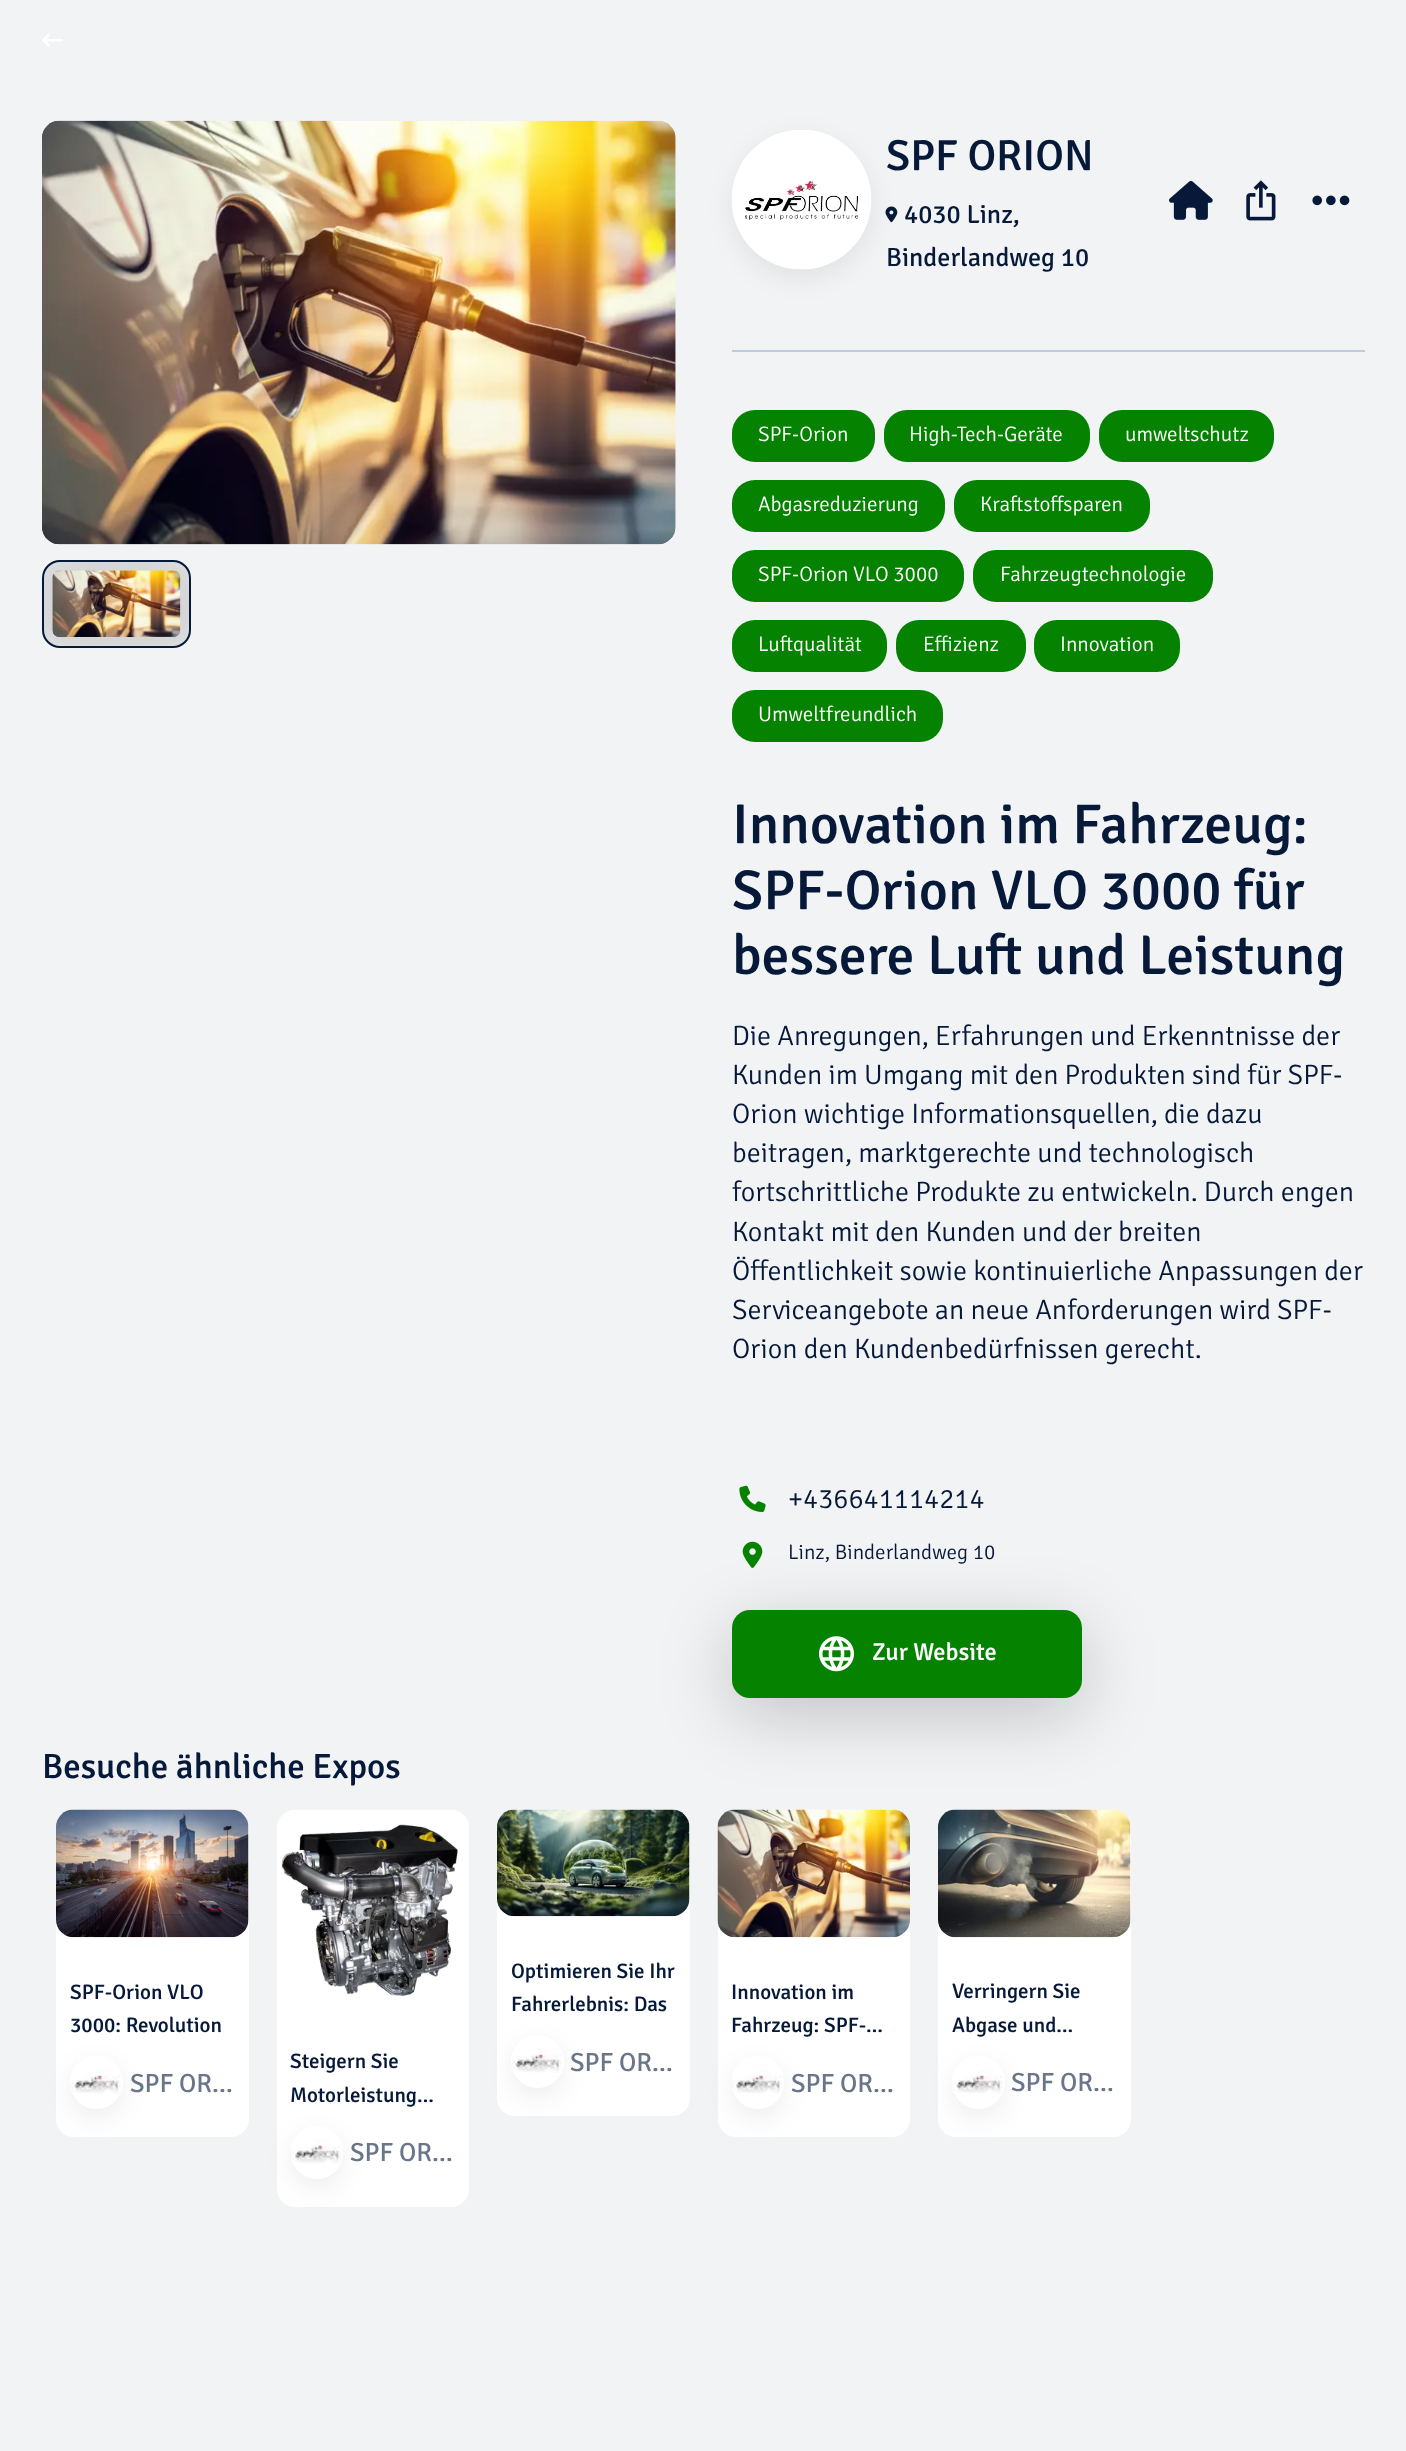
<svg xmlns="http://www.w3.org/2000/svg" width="1406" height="2451">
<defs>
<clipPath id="clip1"><path d="M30 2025h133v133h-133zm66.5 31c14.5 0 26.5 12 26.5 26.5c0 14.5-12 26.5-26.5 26.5c-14.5 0-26.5-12-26.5-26.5c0-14.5 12-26.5 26.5-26.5z" clip-rule="evenodd"/></clipPath>
<clipPath id="clip2"><path d="M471 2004h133v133h-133zm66.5 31c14.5 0 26.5 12 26.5 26.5c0 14.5-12 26.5-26.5 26.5c-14.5 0-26.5-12-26.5-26.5c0-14.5 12-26.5 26.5-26.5z" clip-rule="evenodd"/></clipPath>
<clipPath id="clip3"><path d="M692 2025h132v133h-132zm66 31c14.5 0 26 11.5 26 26v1c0 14.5-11.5 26-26 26c-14.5 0-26-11.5-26-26v-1c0-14.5 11.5-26 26-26z" clip-rule="evenodd"/></clipPath>
<clipPath id="clip4"><path d="M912 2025h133v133h-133zm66.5 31c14.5 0 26.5 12 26.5 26.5c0 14.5-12 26.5-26.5 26.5c-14.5 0-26.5-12-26.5-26.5c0-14.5 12-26.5 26.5-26.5z" clip-rule="evenodd"/></clipPath>
<clipPath id="clip5"><path d="M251 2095h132v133h-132zm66 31c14.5 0 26 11.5 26 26v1c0 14.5-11.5 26-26 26c-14.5 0-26-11.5-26-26v-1c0-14.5 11.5-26 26-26z" clip-rule="evenodd"/></clipPath>
</defs>
<rect width="100%" height="100%" fill="#f2f3f5"/>
<image x="42" y="34" width="21" height="13" href="media/1.png"/>
<image x="42" y="120" width="634" height="425" href="media/2.png"/>
<image x="42" y="120" width="634" height="425" href="media/3.png"/>
<image x="44" y="562" width="145" height="84" href="media/4.png"/>
<rect x="43" y="561" width="147" height="86" rx="17" fill="none" stroke="#061939" stroke-width="2"/>
<image x="52" y="570" width="129" height="67" href="media/5.png"/>
<image x="885" y="206" width="13" height="17" href="media/7.png"/>
<rect x="732" y="138" width="140" height="140" rx="70" fill="#00000012" filter="blur(13px)"/>
<image x="731" y="130" width="141" height="140" href="media/6.png"/>
<text x="886" y="170" style="font-family:Signika;font-size:43.5px;font-weight:500;fill:#061939">SPF ORION</text>
<text x="904" y="223" style="font-family:Signika;font-size:26.25px;fill:#061939">4030 Linz,</text>
<text x="886" y="266" style="font-family:Signika;font-size:26.25px;fill:#061939">Binderlandweg 10</text>
<image x="1169" y="180" width="44" height="40" href="media/8.png"/>
<image x="1246" y="180" width="30" height="41" href="media/9.png"/>
<image x="1312" y="195" width="38" height="11" href="media/10.png"/>
<rect x="732" y="350" width="633" height="2" fill="#becadd"/>
<rect x="732" y="410" width="143" height="52" rx="23" fill="#058200"/>
<text x="758" y="441" style="font-family:Signika;font-size:21px;font-weight:300;fill:#fff">SPF-Orion</text>
<rect x="884" y="410" width="206" height="52" rx="23" fill="#058200"/>
<text x="909" y="441" style="font-family:Signika;font-size:21px;font-weight:300;fill:#fff">High-Tech-Geräte</text>
<rect x="1099" y="410" width="175" height="52" rx="23" fill="#058200"/>
<text x="1125" y="441" style="font-family:Signika;font-size:21px;font-weight:300;fill:#fff">umweltschutz</text>
<rect x="732" y="480" width="213" height="52" rx="23" fill="#058200"/>
<text x="758" y="511" style="font-family:Signika;font-size:21px;font-weight:300;fill:#fff">Abgasreduzierung</text>
<rect x="954" y="480" width="196" height="52" rx="23" fill="#058200"/>
<text x="980" y="511" style="font-family:Signika;font-size:21px;font-weight:300;fill:#fff">Kraftstoffsparen</text>
<rect x="732" y="550" width="232" height="52" rx="23" fill="#058200"/>
<text x="758" y="581" style="font-family:Signika;font-size:21px;font-weight:300;fill:#fff">SPF-Orion VLO 3000</text>
<rect x="973" y="550" width="240" height="52" rx="23" fill="#058200"/>
<text x="1000" y="581" style="font-family:Signika;font-size:21px;font-weight:300;fill:#fff">Fahrzeugtechnologie</text>
<rect x="732" y="620" width="155" height="52" rx="23" fill="#058200"/>
<text x="758" y="651" style="font-family:Signika;font-size:21px;font-weight:300;fill:#fff">Luftqualität</text>
<rect x="896" y="620" width="130" height="52" rx="23" fill="#058200"/>
<text x="923" y="651" style="font-family:Signika;font-size:21px;font-weight:300;fill:#fff">Effizienz</text>
<rect x="1034" y="620" width="146" height="52" rx="23" fill="#058200"/>
<text x="1060" y="651" style="font-family:Signika;font-size:21px;font-weight:300;fill:#fff">Innovation</text>
<rect x="732" y="690" width="211" height="52" rx="23" fill="#058200"/>
<text x="758" y="721" style="font-family:Signika;font-size:21px;font-weight:300;fill:#fff">Umweltfreundlich</text>
<text x="732" y="843" style="font-family:Signika;font-size:56px;font-weight:500;fill:#061939">Innovation im Fahrzeug:</text>
<text x="732" y="909" style="font-family:Signika;font-size:56px;font-weight:500;fill:#061939">SPF-Orion VLO 3000 für</text>
<text x="732" y="974" style="font-family:Signika;font-size:56px;font-weight:500;fill:#061939">bessere Luft und Leistung</text>
<text x="732" y="1045" style="font-family:Signika;font-size:28px;font-weight:300;fill:#061939">Die Anregungen, Erfahrungen und Erkenntnisse der</text>
<text x="732" y="1084" style="font-family:Signika;font-size:28px;font-weight:300;fill:#061939">Kunden im Umgang mit den Produkten sind für SPF-</text>
<text x="732" y="1123" style="font-family:Signika;font-size:28px;font-weight:300;fill:#061939">Orion wichtige Informationsquellen, die dazu</text>
<text x="732" y="1162" style="font-family:Signika;font-size:28px;font-weight:300;fill:#061939">beitragen, marktgerechte und technologisch</text>
<text x="732" y="1201" style="font-family:Signika;font-size:28px;font-weight:300;fill:#061939">fortschrittliche Produkte zu entwickeln. Durch engen</text>
<text x="732" y="1241" style="font-family:Signika;font-size:28px;font-weight:300;fill:#061939">Kontakt mit den Kunden und der breiten</text>
<text x="732" y="1280" style="font-family:Signika;font-size:28px;font-weight:300;fill:#061939">Öffentlichkeit sowie kontinuierliche Anpassungen der</text>
<text x="732" y="1319" style="font-family:Signika;font-size:28px;font-weight:300;fill:#061939">Serviceangebote an neue Anforderungen wird SPF-</text>
<text x="732" y="1358" style="font-family:Signika;font-size:28px;font-weight:300;fill:#061939">Orion den Kundenbedürfnissen gerecht.</text>
<image x="739" y="1485" width="27" height="27" href="media/11.png"/>
<text x="788" y="1508" style="font-family:Signika;font-size:28px;font-weight:300;fill:#061939">+436641114214</text>
<image x="742" y="1541" width="21" height="27" href="media/12.png"/>
<text x="788" y="1559" style="font-family:Signika;font-size:21px;font-weight:300;fill:#061939">Linz, Binderlandweg 10</text>
<rect x="732" y="1628" width="350" height="87" rx="18" fill="#00000033" filter="blur(35px)"/>
<rect x="732" y="1610" width="350" height="88" rx="18" fill="#058200"/>
<image x="819" y="1636" width="35" height="36" href="media/13.png"/>
<text x="872" y="1660" style="font-family:Signika;font-size:24.5px;font-weight:500;fill:#fff">Zur Website</text>
<text x="42" y="1778" style="font-family:Signika;font-size:35px;font-weight:500;fill:#061939">Besuche ähnliche Expos</text>
<rect x="56" y="1810" width="193" height="327" rx="18" fill="#fff"/>
<rect x="56" y="1810" width="193" height="138" rx="18" fill="#fff"/>
<image x="56" y="1809" width="193" height="129" href="media/14.png"/>
<text x="70" y="1999" style="font-family:Signika;font-size:21px;font-weight:500;fill:#061939">SPF-Orion VLO</text>
<text x="70" y="2032" style="font-family:Signika;font-size:21px;font-weight:500;fill:#061939">3000: Revolution</text>
<g clip-path="url(#clip1)">
<rect x="70" y="2065" width="53" height="53" rx="26.5" fill="#00000012" filter="blur(13px)"/>
</g>
<image x="70" y="2069" width="51" height="25" href="media/15.png"/>
<text x="130" y="2092" style="font-family:Signika;font-size:26.25px;fill:#697588">SPF OR…</text>
<rect x="497" y="1810" width="193" height="306" rx="18" fill="#fff"/>
<rect x="497" y="1810" width="193" height="117" rx="18" fill="#fff"/>
<image x="497" y="1809" width="193" height="108" href="media/16.png"/>
<text x="511" y="1978" style="font-family:Signika;font-size:21px;font-weight:500;fill:#061939">Optimieren Sie Ihr</text>
<text x="511" y="2011" style="font-family:Signika;font-size:21px;font-weight:500;fill:#061939">Fahrerlebnis: Das</text>
<g clip-path="url(#clip2)">
<rect x="511" y="2044" width="53" height="53" rx="26.5" fill="#00000012" filter="blur(13px)"/>
</g>
<image x="511" y="2048" width="51" height="25" href="media/15.png"/>
<text x="570" y="2071" style="font-family:Signika;font-size:26.25px;fill:#697588">SPF OR…</text>
<rect x="718" y="1810" width="192" height="327" rx="18" fill="#fff"/>
<rect x="718" y="1810" width="192" height="138" rx="18" fill="#fff"/>
<image x="717" y="1809" width="193" height="129" href="media/17.png"/>
<text x="731" y="1999" style="font-family:Signika;font-size:21px;font-weight:500;fill:#061939">Innovation im</text>
<text x="731" y="2032" style="font-family:Signika;font-size:21px;font-weight:500;fill:#061939">Fahrzeug: SPF-…</text>
<g clip-path="url(#clip3)">
<rect x="732" y="2065" width="52" height="53" rx="26" fill="#00000012" filter="blur(13px)"/>
</g>
<image x="732" y="2069" width="50" height="25" href="media/18.png"/>
<text x="791" y="2092" style="font-family:Signika;font-size:26.25px;fill:#697588">SPF OR…</text>
<rect x="938" y="1810" width="193" height="327" rx="18" fill="#fff"/>
<rect x="938" y="1810" width="193" height="138" rx="18" fill="#fff"/>
<image x="938" y="1809" width="193" height="129" href="media/19.png"/>
<text x="952" y="1998" style="font-family:Signika;font-size:21px;font-weight:500;fill:#061939">Verringern Sie</text>
<text x="952" y="2032" style="font-family:Signika;font-size:21px;font-weight:500;fill:#061939">Abgase und…</text>
<g clip-path="url(#clip4)">
<rect x="952" y="2065" width="53" height="53" rx="26.5" fill="#00000012" filter="blur(13px)"/>
</g>
<image x="952" y="2069" width="51" height="25" href="media/15.png"/>
<text x="1011" y="2091" style="font-family:Signika;font-size:26.25px;fill:#697588">SPF OR…</text>
<rect x="277" y="1810" width="192" height="397" rx="18" fill="#fff"/>
<rect x="277" y="1810" width="192" height="208" rx="18" fill="#fff"/>
<image x="281" y="1824" width="177" height="172" href="media/20.png"/>
<text x="290" y="2068" style="font-family:Signika;font-size:21px;font-weight:500;fill:#061939">Steigern Sie</text>
<text x="290" y="2102" style="font-family:Signika;font-size:21px;font-weight:500;fill:#061939">Motorleistung…</text>
<g clip-path="url(#clip5)">
<rect x="291" y="2135" width="52" height="53" rx="26" fill="#00000012" filter="blur(13px)"/>
</g>
<image x="291" y="2139" width="50" height="25" href="media/18.png"/>
<text x="350" y="2161" style="font-family:Signika;font-size:26.25px;fill:#697588">SPF OR…</text>
</svg>
